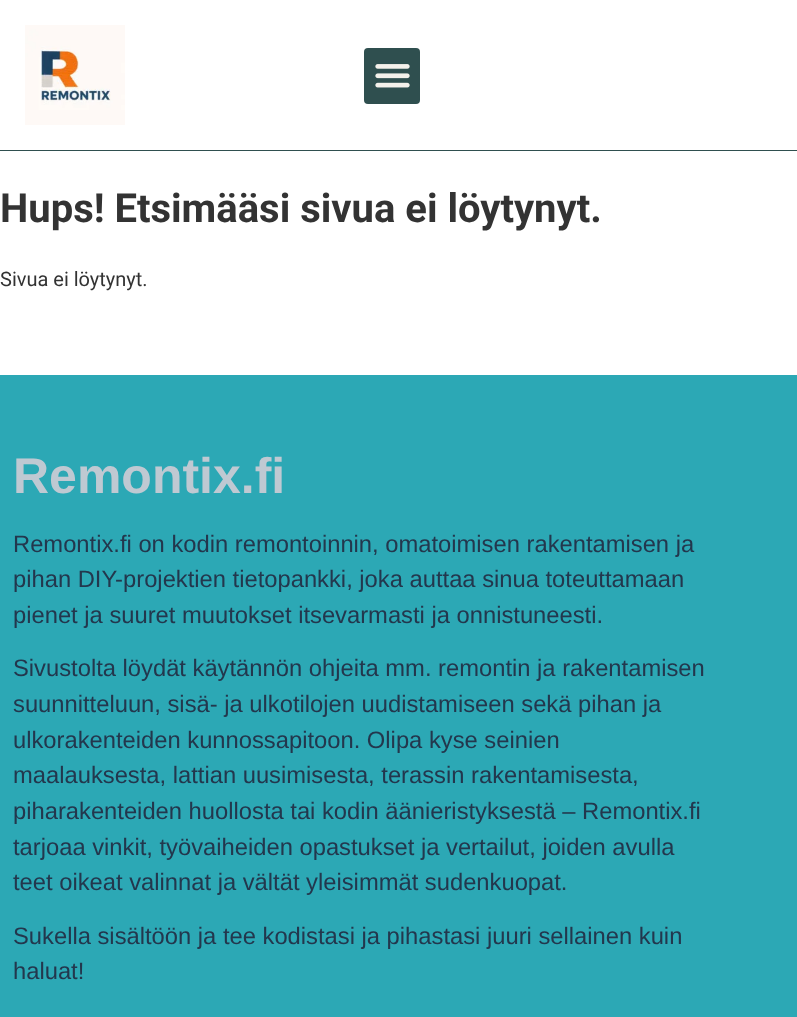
<svg xmlns="http://www.w3.org/2000/svg" width="797" height="1017">
<rect width="100%" height="100%" fill="#fff"/>
<rect y="150" width="797" height="1" fill="#2f4f4f"/>
<image x="25" y="25" width="100" height="100" href="media/1.png"/>
<rect x="364" y="48" width="56" height="56" rx="4" fill="#2f4f4f"/>
<image x="375" y="64" width="35" height="24" href="media/2.png"/>
<text x="0" y="222" style="font-family:Roboto;font-size:40px;font-weight:bold;fill:#333">Hups! Etsimääsi sivua ei löytynyt.</text>
<text x="0" y="286" style="font-family:Roboto;font-size:20px;fill:#333">Sivua ei löytynyt.</text>
<rect y="375" width="797" height="642" fill="#2ca8b5"/>
<text x="13" y="493" style="font-family:Liberation Sans;font-size:50px;font-weight:bold;fill:#bfc9d2">Remontix.fi</text>
<text x="13" y="552" style="font-family:Liberation Sans;font-size:23.75px;fill:#23374d">Remontix.fi on kodin remontoinnin, omatoimisen rakentamisen ja</text>
<text x="13" y="587" style="font-family:Liberation Sans;font-size:23.75px;fill:#23374d">pihan DIY-projektien tietopankki, joka auttaa sinua toteuttamaan</text>
<text x="13" y="623" style="font-family:Liberation Sans;font-size:23.75px;fill:#23374d">pienet ja suuret muutokset itsevarmasti ja onnistuneesti.</text>
<text x="13" y="676" style="font-family:Liberation Sans;font-size:23.75px;fill:#23374d">Sivustolta löydät käytännön ohjeita mm. remontin ja rakentamisen</text>
<text x="13" y="712" style="font-family:Liberation Sans;font-size:23.75px;fill:#23374d">suunnitteluun, sisä- ja ulkotilojen uudistamiseen sekä pihan ja</text>
<text x="13" y="748" style="font-family:Liberation Sans;font-size:23.75px;fill:#23374d">ulkorakenteiden kunnossapitoon. Olipa kyse seinien</text>
<text x="13" y="783" style="font-family:Liberation Sans;font-size:23.75px;fill:#23374d">maalauksesta, lattian uusimisesta, terassin rakentamisesta,</text>
<text x="13" y="819" style="font-family:Liberation Sans;font-size:23.75px;fill:#23374d">piharakenteiden huollosta tai kodin äänieristyksestä – Remontix.fi</text>
<text x="13" y="855" style="font-family:Liberation Sans;font-size:23.75px;fill:#23374d">tarjoaa vinkit, työvaiheiden opastukset ja vertailut, joiden avulla</text>
<text x="13" y="890" style="font-family:Liberation Sans;font-size:23.75px;fill:#23374d">teet oikeat valinnat ja vältät yleisimmät sudenkuopat.</text>
<text x="13" y="944" style="font-family:Liberation Sans;font-size:23.75px;fill:#23374d">Sukella sisältöön ja tee kodistasi ja pihastasi juuri sellainen kuin</text>
<text x="13" y="979" style="font-family:Liberation Sans;font-size:23.75px;fill:#23374d">haluat!</text>
</svg>
